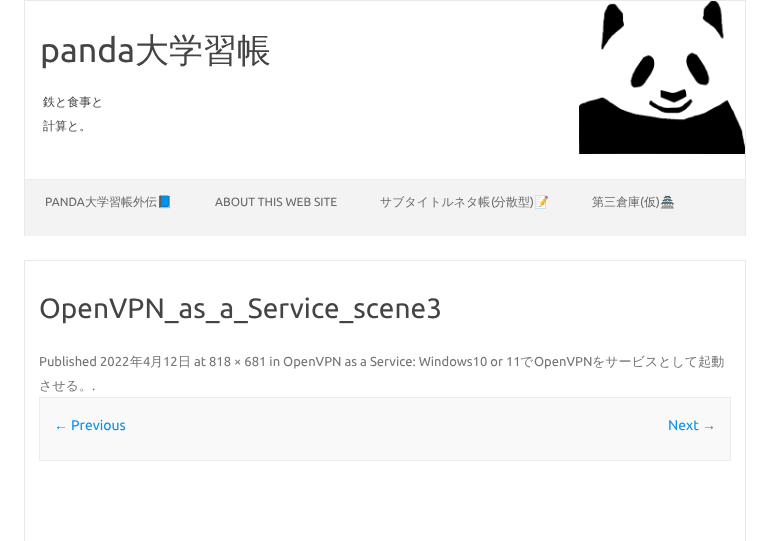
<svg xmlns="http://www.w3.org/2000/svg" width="770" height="541">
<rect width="100%" height="100%" fill="#fff"/>
<image x="579" y="1" width="166" height="153" href="media/1.png"/>
<rect x="24" width="722" height="1" fill="#e9e9e9"/>
<rect x="745" width="1" height="236" fill="#e9e9e9"/>
<rect x="24" width="1" height="236" fill="#e9e9e9"/>
<text x="40" y="62" style="font-family:Ubuntu;font-size:34px;fill:#444">panda</text>
<text x="135" y="62" style="font-family:WenQuanYi Zen Hei;font-size:34px;font-weight:500;fill:#444">大学習帳</text>
<text x="43" y="106" style="font-family:WenQuanYi Zen Hei;font-size:12px;font-weight:500;fill:#444">鉄と食事と</text>
<text x="43" y="130" style="font-family:WenQuanYi Zen Hei;font-size:12px;font-weight:500;fill:#444">計算と。</text>
<rect x="25" y="180" width="720" height="56" fill="#f3f3f3"/>
<rect x="25" y="179" width="720" height="1" fill="#ededed"/>
<text x="45" y="206" style="font-family:Ubuntu;font-size:12px;fill:#6a6a6a">PANDA</text>
<text x="85" y="206" style="font-family:WenQuanYi Zen Hei;font-size:12px;font-weight:500;fill:#6a6a6a">大学習帳外伝</text>
<text x="157" y="206" style="font-family:Noto Color Emoji;font-size:12px;fill:#6a6a6a">📘</text>
<text x="215" y="206" style="font-family:Ubuntu;font-size:12px;fill:#6a6a6a">ABOUT THIS WEB SITE</text>
<text x="380" y="206" style="font-family:WenQuanYi Zen Hei;font-size:12px;font-weight:500;fill:#6a6a6a">サブタイトルネタ帳</text>
<text x="491" y="206" style="font-family:Ubuntu;font-size:12px;fill:#6a6a6a">(</text>
<text x="494" y="206" style="font-family:WenQuanYi Zen Hei;font-size:12px;font-weight:500;fill:#6a6a6a">分散型</text>
<text x="530" y="206" style="font-family:Ubuntu;font-size:12px;fill:#6a6a6a">)</text>
<text x="534" y="206" style="font-family:Noto Color Emoji;font-size:12px;fill:#6a6a6a">📝</text>
<text x="592" y="206" style="font-family:WenQuanYi Zen Hei;font-size:12px;font-weight:500;fill:#6a6a6a">第三倉庫</text>
<text x="640" y="206" style="font-family:Ubuntu;font-size:12px;fill:#6a6a6a">(</text>
<text x="644" y="206" style="font-family:WenQuanYi Zen Hei;font-size:12px;font-weight:500;fill:#6a6a6a">仮</text>
<text x="656" y="206" style="font-family:Ubuntu;font-size:12px;fill:#6a6a6a">)</text>
<text x="660" y="206" style="font-family:Noto Color Emoji;font-size:12px;fill:#6a6a6a">🏯</text>
<rect x="24.5" y="260.5" width="721" height="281" fill="none" stroke="#e9e9e9"/>
<text x="39" y="318" style="font-family:Ubuntu;font-size:28px;fill:#444">OpenVPN_as_a_Service_scene3</text>
<text x="39" y="366" style="font-family:Ubuntu;font-size:13px;fill:#757575">Published 2022</text>
<text x="130" y="366" style="font-family:WenQuanYi Zen Hei;font-size:13px;font-weight:500;fill:#757575">年</text>
<text x="143" y="366" style="font-family:Ubuntu;font-size:13px;fill:#757575">4</text>
<text x="150" y="366" style="font-family:WenQuanYi Zen Hei;font-size:13px;font-weight:500;fill:#757575">月</text>
<text x="163" y="366" style="font-family:Ubuntu;font-size:13px;fill:#757575">12</text>
<text x="178" y="366" style="font-family:WenQuanYi Zen Hei;font-size:13px;font-weight:500;fill:#757575">日</text>
<text x="194" y="366" style="font-family:Ubuntu;font-size:13px;fill:#757575">at 818 × 681 in OpenVPN as a Service: Windows10 or 11</text>
<text x="520" y="366" style="font-family:WenQuanYi Zen Hei;font-size:13px;font-weight:500;fill:#757575">で</text>
<text x="534" y="366" style="font-family:Ubuntu;font-size:13px;fill:#757575">OpenVPN</text>
<text x="592" y="366" style="font-family:WenQuanYi Zen Hei;font-size:13px;font-weight:500;fill:#757575">をサービスとして起動</text>
<text x="39" y="390" style="font-family:WenQuanYi Zen Hei;font-size:13px;font-weight:500;fill:#757575">させる。</text>
<text x="92" y="390" style="font-family:Ubuntu;font-size:13px;fill:#757575">.</text>
<rect x="39.5" y="397.5" width="691" height="63" fill="#f9f9f9" stroke="#ededed"/>
<text x="54" y="430" style="font-family:Liberation Sans;font-size:14px;fill:#0b91ea">←</text>
<text x="71" y="430" style="font-family:Ubuntu;font-size:14px;fill:#0b91ea">Previous</text>
<text x="668" y="430" style="font-family:Ubuntu;font-size:14px;fill:#0b91ea">Next</text>
<text x="702" y="430" style="font-family:Liberation Sans;font-size:14px;fill:#0b91ea">→</text>
</svg>
